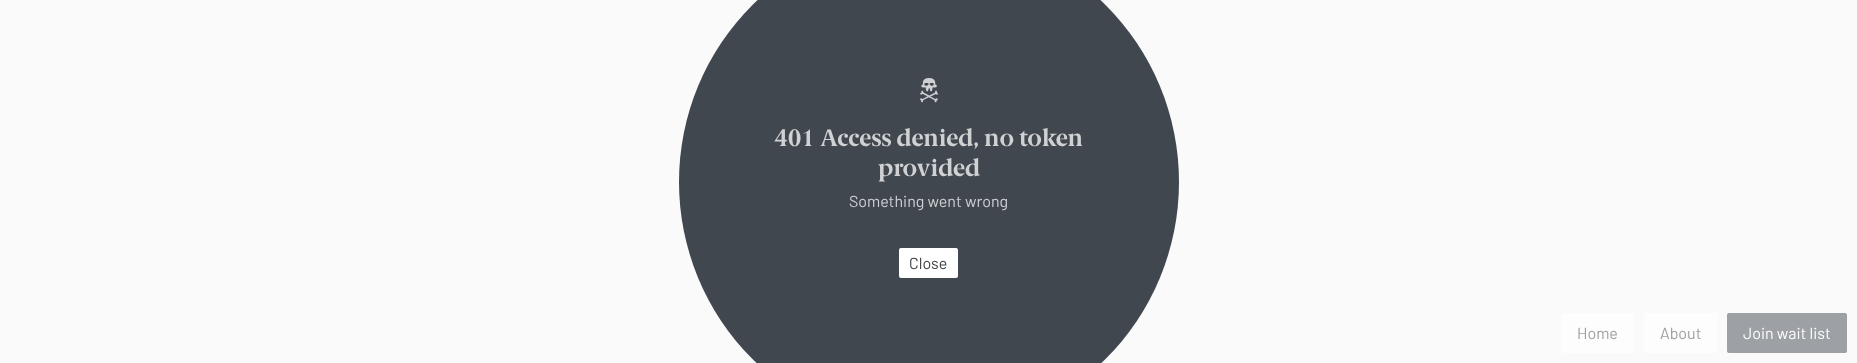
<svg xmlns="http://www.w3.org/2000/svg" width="1857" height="363">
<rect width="100%" height="100%" fill="#fafafa"/>
<circle cx="929" cy="182" r="250" fill="#40474f"/>
<image x="920" y="78" width="18" height="25" href="media/1.png"/>
<text x="774" y="146" style="font-family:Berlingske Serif;font-size:24px;font-weight:bold;fill:#cfd1d3">401 Access denied, no token</text>
<text x="878" y="176" style="font-family:Berlingske Serif;font-size:24px;font-weight:bold;fill:#cfd1d3">provided</text>
<text x="849" y="207" style="font-family:Barlow;font-size:16px;fill:#cfd1d3">Something went wrong</text>
<rect x="899" y="248" width="59" height="30" rx="2" fill="#fff"/>
<text x="909" y="269" style="font-family:Barlow;font-size:16px;fill:#404447">Close</text>
<rect x="1561" y="313" width="73" height="40" rx="2" fill="#fdfdfd"/>
<text x="1577" y="339" style="font-family:Barlow;font-size:16px;fill:#9d9fa1">Home</text>
<rect x="1644" y="313" width="73" height="40" rx="2" fill="#fdfdfd"/>
<text x="1660" y="339" style="font-family:Barlow;font-size:16px;fill:#9d9fa1">About</text>
<rect x="1727" y="313" width="120" height="40" rx="2" fill="#9da1a5"/>
<text x="1743" y="339" style="font-family:Barlow;font-size:16px;fill:#fdfdfd">Join wait list</text>
</svg>
